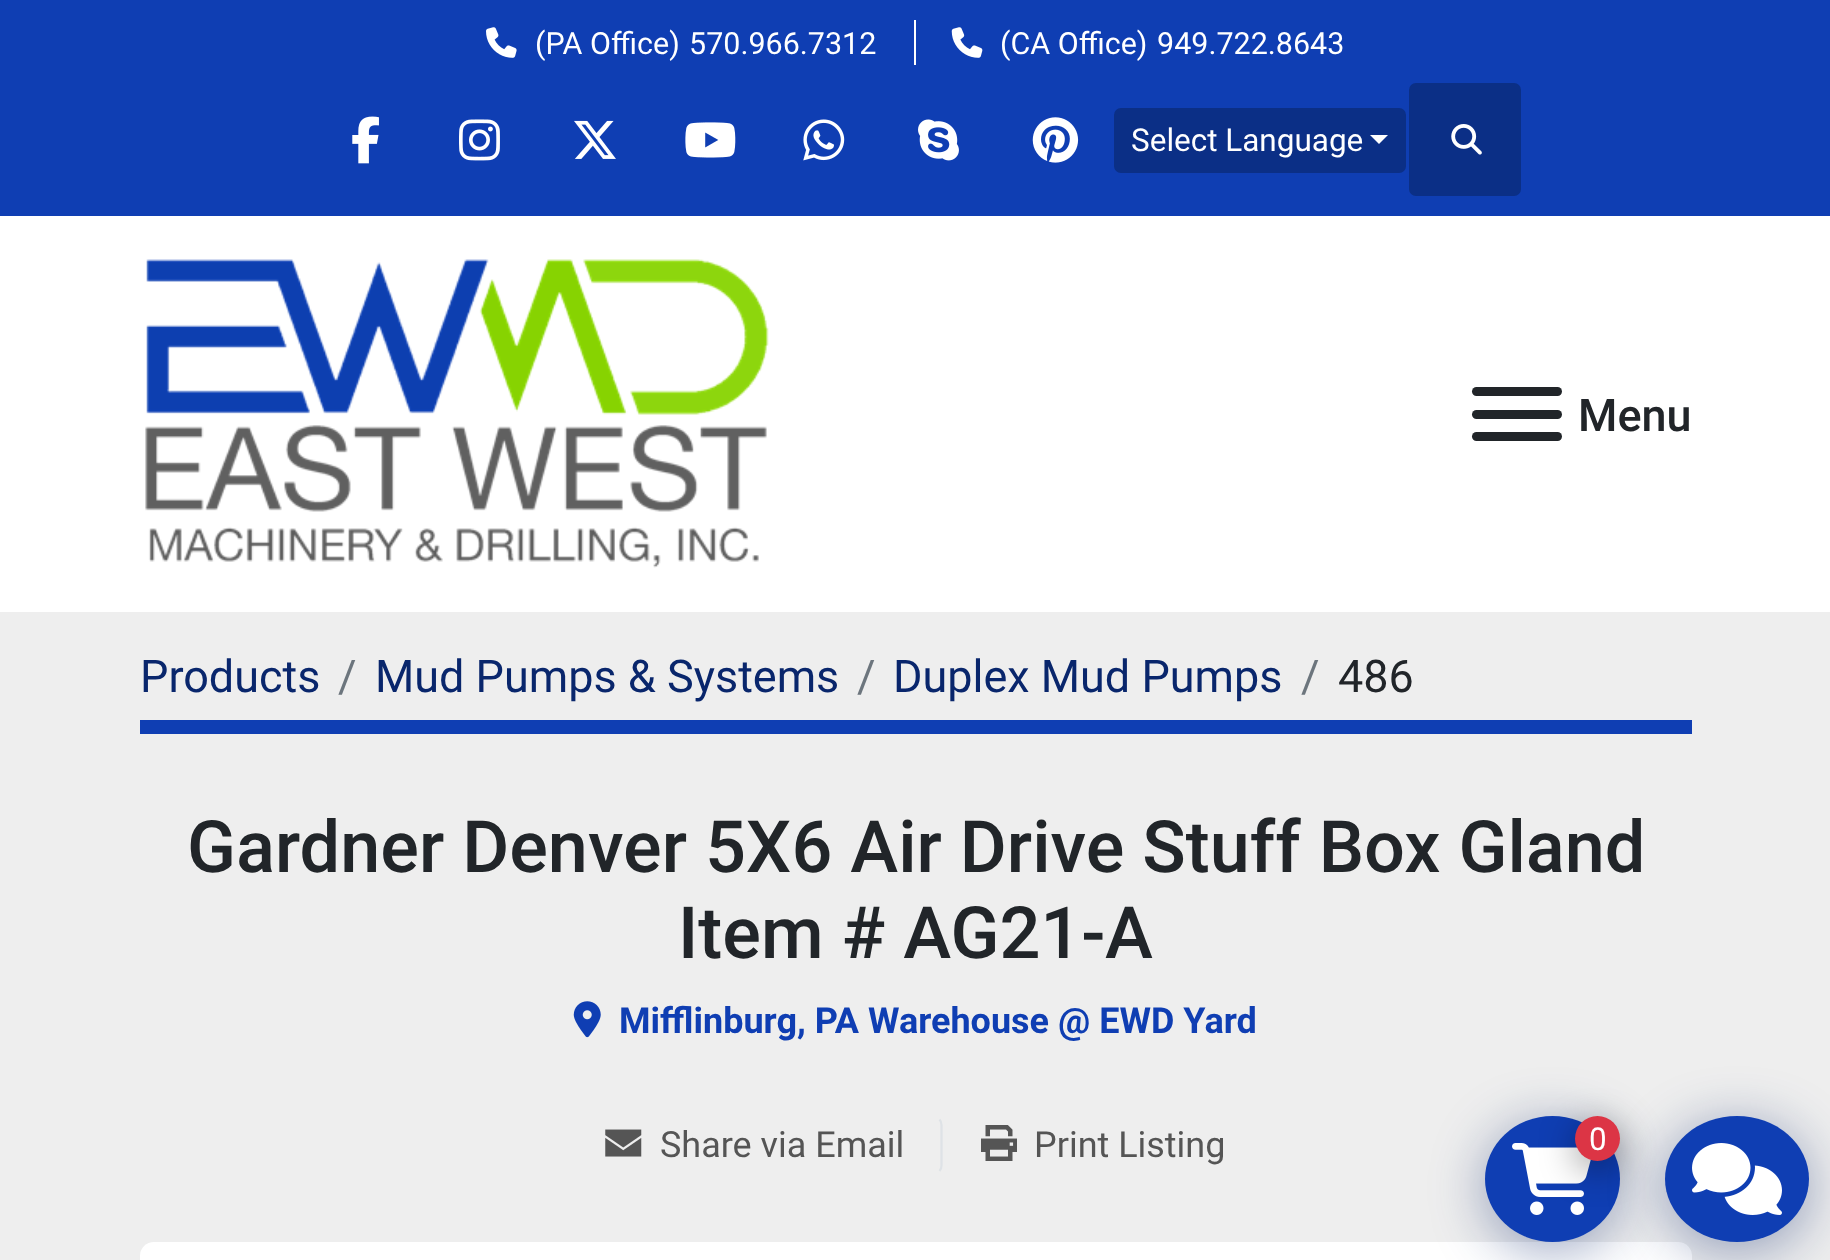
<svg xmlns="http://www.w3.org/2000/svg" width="1830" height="1260">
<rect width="100%" height="100%" fill="#eee"/>
<rect width="1830" height="216" fill="#0f3eb3"/>
<rect x="914" y="20" width="2" height="45" fill="#fff"/>
<image x="486" y="27" width="31" height="31" href="media/1.png"/>
<text x="535" y="54" style="font-family:Roboto;font-size:30.5px;fill:#fff">(PA Office)</text>
<text x="689" y="54" style="font-family:Roboto;font-size:30.5px;fill:#fff">570.966.7312</text>
<image x="951" y="27" width="32" height="31" href="media/2.png"/>
<text x="1000" y="54" style="font-family:Roboto;font-size:30.5px;fill:#fff">(CA Office)</text>
<text x="1157" y="54" style="font-family:Roboto;font-size:30.5px;fill:#fff">949.722.8643</text>
<image x="352" y="116" width="27" height="48" href="media/3.png"/>
<image x="459" y="119" width="41" height="42" href="media/4.png"/>
<image x="574" y="120" width="42" height="39" href="media/5.png"/>
<image x="685" y="122" width="51" height="36" href="media/6.png"/>
<image x="803" y="119" width="42" height="42" href="media/7.png"/>
<image x="918" y="119" width="41" height="42" href="media/8.png"/>
<image x="1032" y="117" width="47" height="46" href="media/9.png"/>
<rect x="1114" y="108" width="292" height="65" rx="7" fill="#0b2f86"/>
<text x="1131" y="151" style="font-family:Roboto;font-size:31.5px;fill:#fff">Select Language</text>
<path d="M1370 135h18l-9 9z" fill="#fff"/>
<rect x="1409" y="83" width="112" height="113" rx="7" fill="#0b2f86"/>
<image x="1451" y="124" width="31" height="31" href="media/10.png"/>
<rect y="216" width="1830" height="396" fill="#fff"/>
<image x="145" y="259" width="624" height="309" href="media/11.png"/>
<rect x="1472" y="410" width="90" height="9" rx="4.5" fill="#212529"/>
<rect x="1472" y="387" width="90" height="9" rx="4.5" fill="#212529"/>
<rect x="1472" y="432" width="90" height="9" rx="4.5" fill="#212529"/>
<text x="1578" y="431" style="font-family:Roboto;font-size:45px;font-weight:500;fill:#212529">Menu</text>
<rect x="140" y="720" width="1552" height="14" fill="#0f3eb3"/>
<text x="140" y="692" style="font-family:Roboto;font-size:45px;fill:#09266c">Products</text>
<text x="338" y="692" style="font-family:Roboto;font-size:45px;fill:#6c757d">/</text>
<text x="375" y="692" style="font-family:Roboto;font-size:45px;fill:#09266c">Mud Pumps &amp; Systems</text>
<text x="857" y="692" style="font-family:Roboto;font-size:45px;fill:#6c757d">/</text>
<text x="893" y="692" style="font-family:Roboto;font-size:45px;fill:#09266c">Duplex Mud Pumps</text>
<text x="1301" y="692" style="font-family:Roboto;font-size:45px;fill:#6c757d">/</text>
<text x="1338" y="692" style="font-family:Roboto;font-size:45px;fill:#212529">486</text>
<text x="187" y="872" style="font-family:Roboto;font-size:72px;font-weight:500;fill:#212529">Gardner Denver 5X6 Air Drive Stuff Box Gland</text>
<text x="678" y="958" style="font-family:Roboto;font-size:72px;font-weight:500;fill:#212529">Item # AG21-A</text>
<image x="573" y="1001" width="28" height="37" href="media/12.png"/>
<text x="619" y="1033" style="font-family:Roboto;font-size:36px;font-weight:bold;fill:#0f3eb3">Mifflinburg, PA Warehouse @ EWD Yard</text>
<path d="M939.5 1119.5c1.5 1.5 2 3.5 2 5.5v40.5c0 2-.5 4-2 5.5" fill="none" stroke="#dee2e6" stroke-width="2.2"/>
<image x="605" y="1129" width="37" height="28" href="media/13.png"/>
<text x="660" y="1157" style="font-family:Roboto;font-size:36px;fill:#555">Share via Email</text>
<image x="981" y="1125" width="36" height="36" href="media/14.png"/>
<text x="1034" y="1157" style="font-family:Roboto;font-size:36px;fill:#555">Print Listing</text>
<rect x="140" y="1242" width="1552" height="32" rx="14" fill="#fff"/>
<rect x="1485" y="1125" width="135" height="126" rx="63" fill="#09266c66" filter="blur(27px)"/>
<ellipse cx="1552.5" cy="1179" rx="67.5" ry="63" fill="#0f3eb3"/>
<image x="1512" y="1143" width="79" height="72" href="media/16.png"/>
<rect x="1665" y="1125" width="144" height="126" rx="63" fill="#09266c66" filter="blur(27px)"/>
<ellipse cx="1737" cy="1179" rx="72" ry="63" fill="#0f3eb3"/>
<image x="1692" y="1143" width="90" height="72" href="media/15.png"/>
<rect x="1575" y="1125" width="45" height="45" rx="22.5" fill="#00000066" filter="blur(18px)"/>
<circle cx="1597.5" cy="1138.5" r="22.5" fill="#dc3545"/>
<text x="1589" y="1150" style="font-family:Roboto;font-size:31.5px;fill:#fff">0</text>
</svg>
